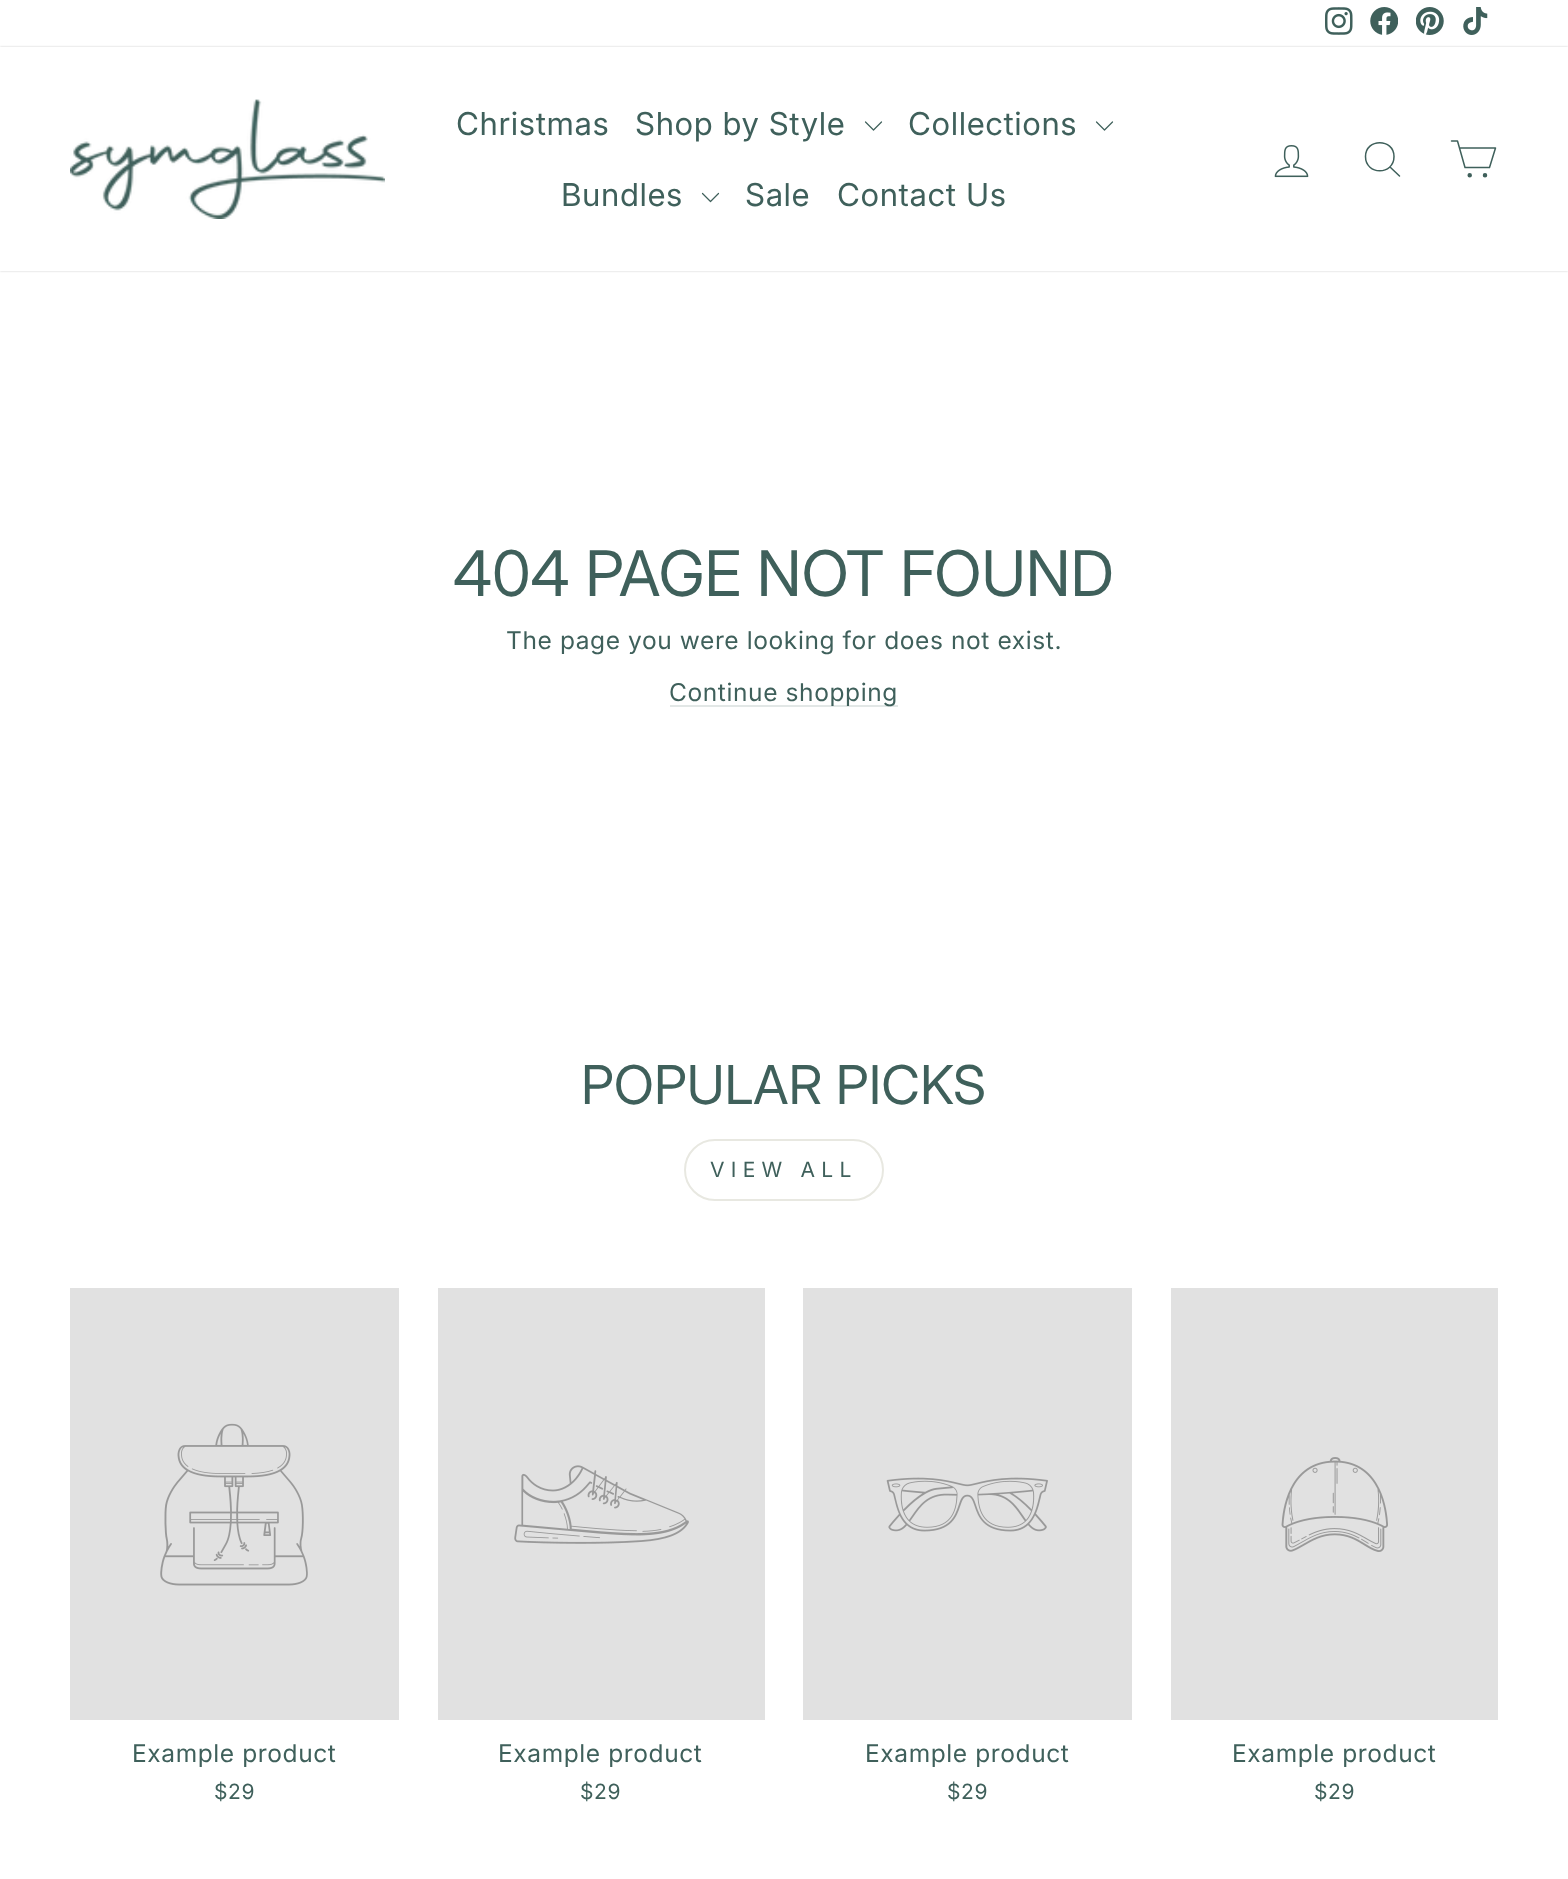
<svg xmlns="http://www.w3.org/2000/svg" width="1568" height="1879">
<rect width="100%" height="100%" fill="#fff"/>
<image x="1325" y="7" width="28" height="28" href="media/1.png"/>
<image x="1370" y="7" width="28" height="28" href="media/2.png"/>
<image x="1416" y="7" width="28" height="28" href="media/3.png"/>
<image x="1463" y="7" width="25" height="28" href="media/4.png"/>
<rect y="47" width="1568" height="224" fill="#00000033" filter="blur(1px)"/>
<rect y="47" width="1568" height="224" fill="#fff"/>
<image x="70" y="99" width="315" height="120" href="media/5.png"/>
<text x="456" y="135" style="font-family:'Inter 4';font-size:31.5px;letter-spacing:0.6px;fill:#3f605b">Christmas</text>
<text x="635" y="135" style="font-family:'Inter 4';font-size:31.5px;letter-spacing:0.6px;fill:#3f605b">Shop by Style</text>
<path d="M865.5 122l8 8l8-8" fill="none" stroke="#3f605b" stroke-width="1.2" stroke-linecap="round" stroke-linejoin="round"/>
<text x="908" y="135" style="font-family:'Inter 4';font-size:31.5px;letter-spacing:0.6px;fill:#3f605b">Collections</text>
<path d="M1096.5 122l8 8l8-8" fill="none" stroke="#3f605b" stroke-width="1.2" stroke-linecap="round" stroke-linejoin="round"/>
<text x="561" y="206" style="font-family:'Inter 4';font-size:31.5px;letter-spacing:0.6px;fill:#3f605b">Bundles</text>
<path d="M702.5 193.5l8 8l8-8" fill="none" stroke="#3f605b" stroke-width="1.2" stroke-linecap="round" stroke-linejoin="round"/>
<text x="745" y="206" style="font-family:'Inter 4';font-size:31.5px;letter-spacing:0.6px;fill:#3f605b">Sale</text>
<text x="837" y="206" style="font-family:'Inter 4';font-size:31.5px;letter-spacing:0.6px;fill:#3f605b">Contact Us</text>
<image x="1274" y="145" width="35" height="33" href="media/6.png"/>
<path d="M1394 156.5c0 19-28.5 19-28.5 0c0-18.5 28.5-18.5 28.5 0zm5.5 19.5l-9.5-9" fill="none" stroke="#3f605b" stroke-width="1.5" stroke-linecap="round" stroke-linejoin="round"/>
<path d="M1459.5 148h36l-6 19.5h-24.5l-7.5-26.5h-6" fill="none" stroke="#3f605b" stroke-width="1.5" stroke-linecap="round" stroke-linejoin="round"/>
<circle cx="1469.7" cy="175.3" r="1.5" fill="#3f605b" stroke="#3f605b" stroke-width="1.5"/>
<circle cx="1485" cy="175.3" r="1.5" fill="#3f605b" stroke="#3f605b" stroke-width="1.5"/>
<text x="453" y="596" style="font-family:Inter;font-size:63px;fill:#3f605b">404 PAGE NOT FOUND</text>
<text x="506" y="649" style="font-family:'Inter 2';font-size:24.5px;letter-spacing:0.6px;fill:#3f605b">The page you were looking for does not exist.</text>
<rect x="670" y="705" width="228" height="2" fill="#e2e7e6"/>
<text x="669" y="701" style="font-family:'Inter 2';font-size:24.5px;letter-spacing:0.6px;fill:#3f605b">Continue shopping</text>
<text x="581" y="1104" style="font-family:'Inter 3';font-size:53.5px;fill:#3f605b">POPULAR PICKS</text>
<rect x="685" y="1140" width="198" height="60" rx="30" fill="none" stroke="#e8e8e1" stroke-width="2"/>
<text x="710" y="1177" style="font-family:'Inter 2';font-size:21px;letter-spacing:6.25px;fill:#3f605b">VIEW ALL</text>
<rect x="70" y="1288" width="329" height="432" fill="#e1e1e1"/>
<image x="160" y="1423" width="148" height="163" href="media/7.png"/>
<text x="132" y="1762" style="font-family:'Inter 2';font-size:24.5px;letter-spacing:0.6px;fill:#3f605b">Example product</text>
<text x="214" y="1799" style="font-family:'Inter 2';font-size:21px;letter-spacing:0.6px;fill:#3f605b">$29</text>
<rect x="438" y="1288" width="327" height="432" fill="#e1e1e1"/>
<image x="514" y="1465" width="175" height="79" href="media/8.png"/>
<text x="498" y="1762" style="font-family:'Inter 2';font-size:24.5px;letter-spacing:0.6px;fill:#3f605b">Example product</text>
<text x="580" y="1799" style="font-family:'Inter 2';font-size:21px;letter-spacing:0.6px;fill:#3f605b">$29</text>
<rect x="803" y="1288" width="329" height="432" fill="#e1e1e1"/>
<image x="886" y="1477" width="162" height="55" href="media/9.png"/>
<text x="865" y="1762" style="font-family:'Inter 2';font-size:24.5px;letter-spacing:0.6px;fill:#3f605b">Example product</text>
<text x="947" y="1799" style="font-family:'Inter 2';font-size:21px;letter-spacing:0.6px;fill:#3f605b">$29</text>
<rect x="1171" y="1288" width="327" height="432" fill="#e1e1e1"/>
<image x="1281" y="1457" width="107" height="95" href="media/10.png"/>
<text x="1232" y="1762" style="font-family:'Inter 2';font-size:24.5px;letter-spacing:0.6px;fill:#3f605b">Example product</text>
<text x="1314" y="1799" style="font-family:'Inter 2';font-size:21px;letter-spacing:0.6px;fill:#3f605b">$29</text>
</svg>
